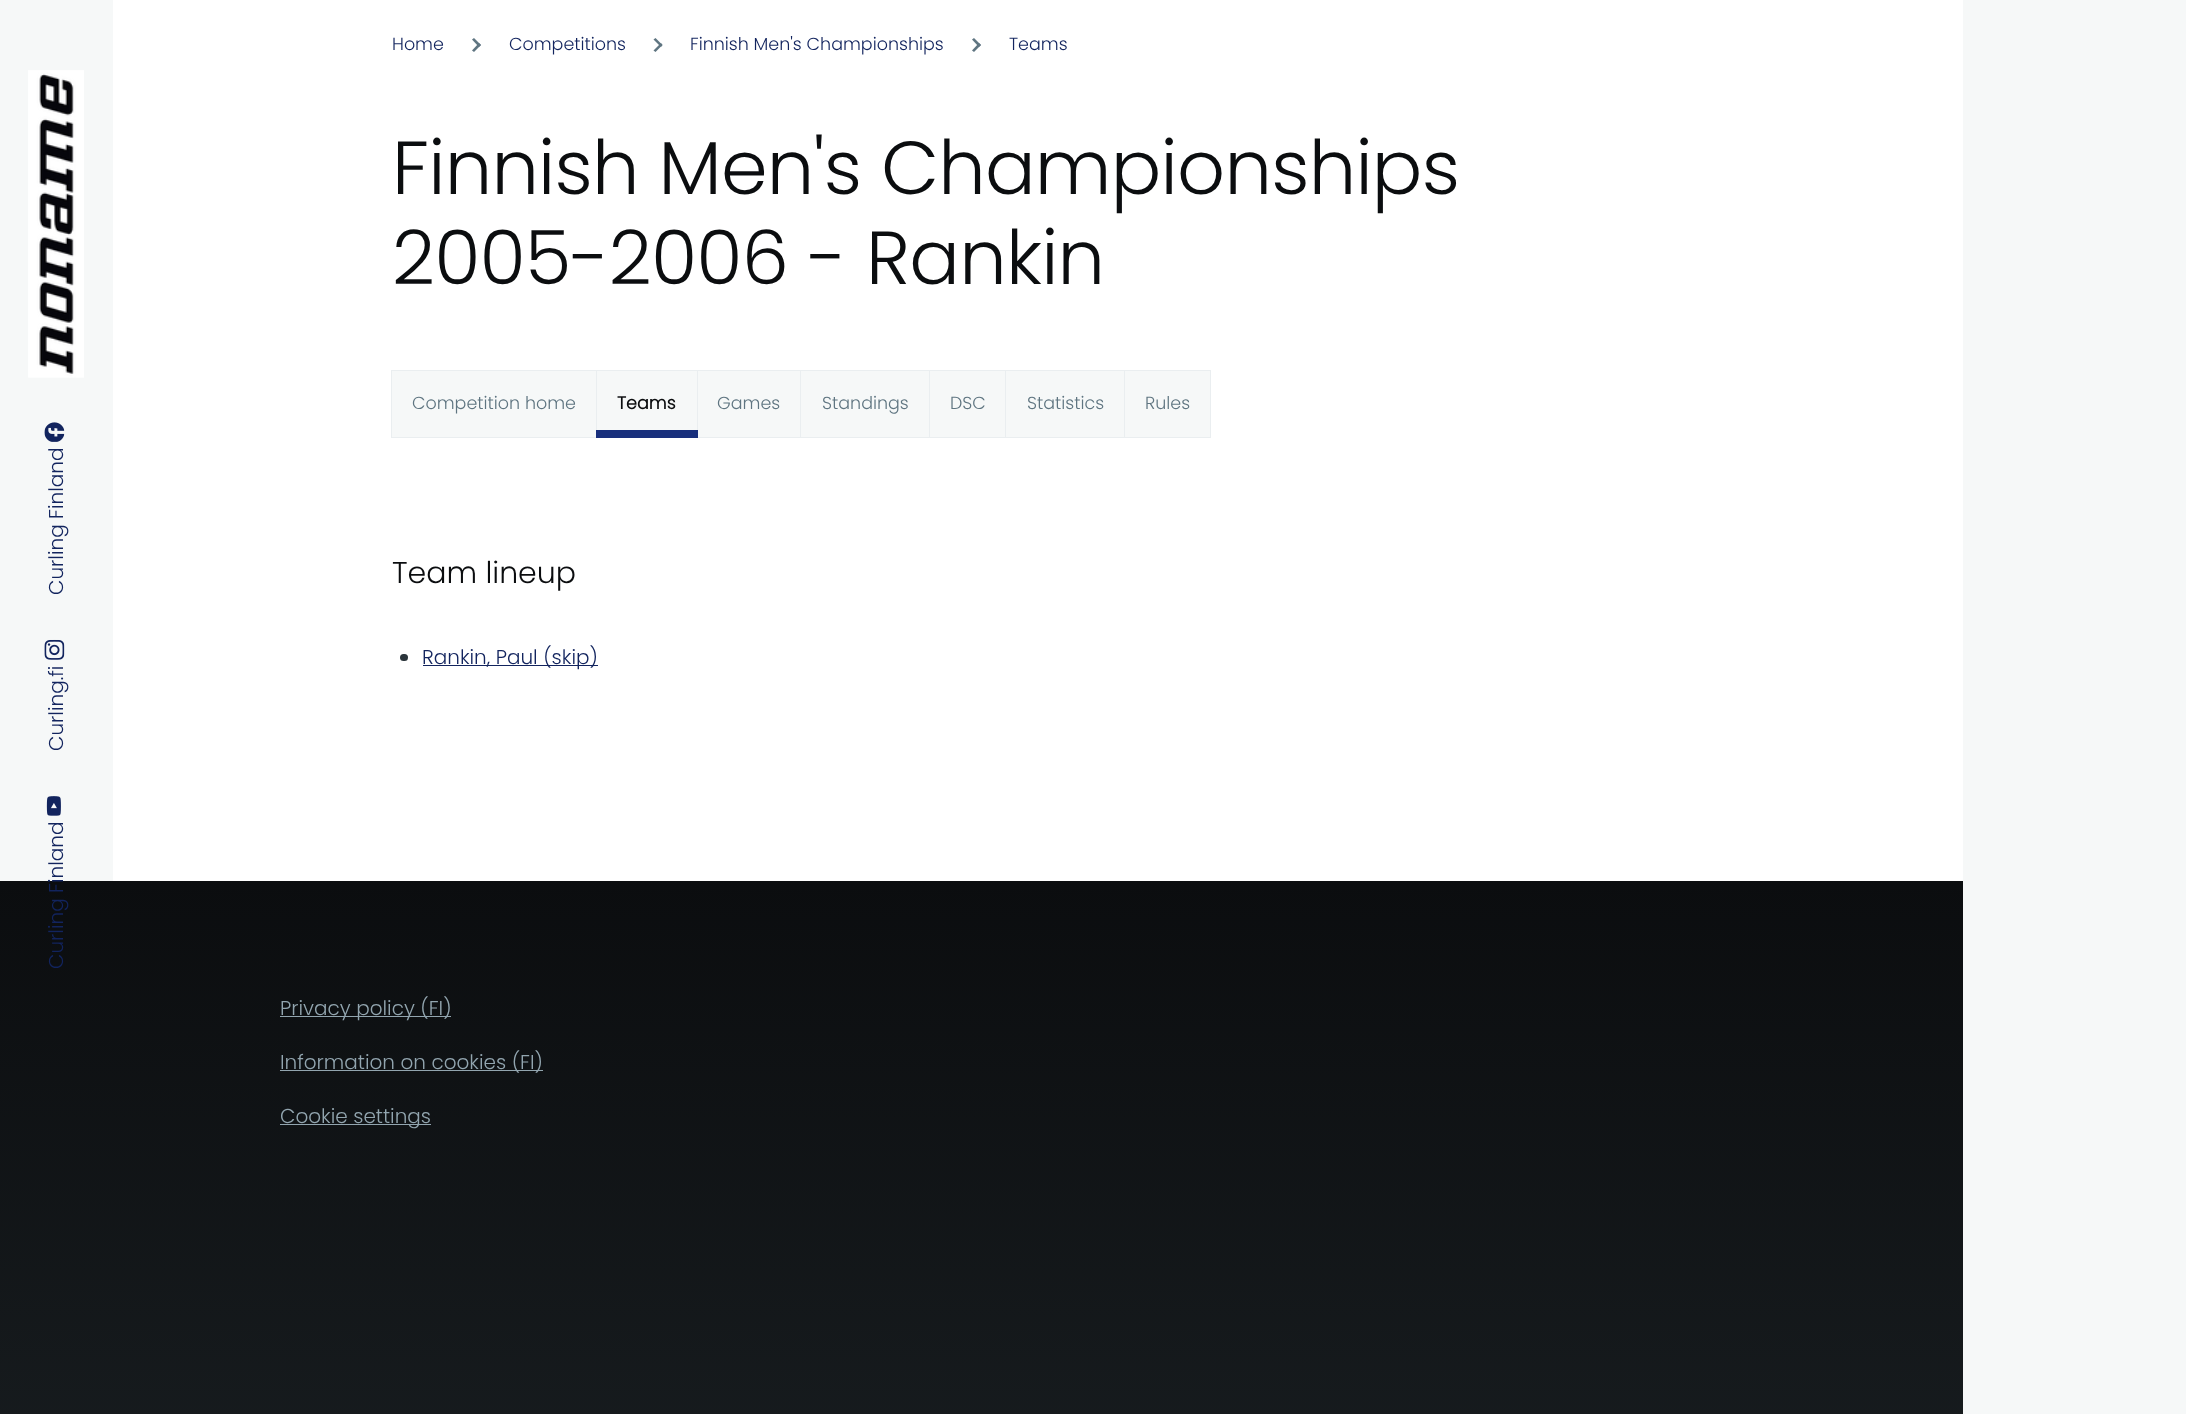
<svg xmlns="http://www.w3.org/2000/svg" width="2186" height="1414">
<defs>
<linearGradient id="g1" gradientUnits="userSpaceOnUse" x1="981" y1="881" x2="981" y2="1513"><stop offset="0" stop-color="#0b0d0f"/><stop offset="1" stop-color="#181d20"/></linearGradient>
</defs>
<rect width="100%" height="100%" fill="#f6f8f8"/>
<rect x="113" width="1850" height="881" fill="#fff"/>
<image x="28" y="70" width="56" height="308" href="media/1.png"/>
<image x="44" y="422" width="21" height="20" href="media/2.png"/>
<text x="63" y="595" transform="rotate(-90 63 595)" style="font-family:Poppins;font-size:20px;font-weight:300;fill:#12245e">Curling Finland</text>
<image x="44" y="639" width="21" height="21" href="media/3.png"/>
<text x="63" y="751" transform="rotate(-90 63 751)" style="font-family:Poppins;font-size:20px;font-weight:300;fill:#12245e">Curling.fi</text>
<image x="46" y="796" width="15" height="20" href="media/4.png"/>
<rect y="881" width="1963" height="533" fill="url(#g1)"/>
<text x="63" y="969" transform="rotate(-90 63 969)" style="font-family:Poppins;font-size:20px;font-weight:300;fill:#12245e">Curling Finland</text>
<text x="392" y="50" style="font-family:Poppins;font-size:17.5px;font-weight:300;fill:#12245e">Home</text>
<path d="M474 38l7 7l-2 2l-7-7.5z" fill="#5f7581"/>
<path d="M479 43l2 2l-7 7l-2-1.5z" fill="#5f7581"/>
<text x="509" y="50" style="font-family:Poppins;font-size:17.5px;font-weight:300;fill:#12245e">Competitions</text>
<path d="M655.5 38l7 7l-1.5 2l-7.5-7.5z" fill="#5f7581"/>
<path d="M661 43l1.5 2l-7 7l-2-1.5z" fill="#5f7581"/>
<text x="690" y="50" style="font-family:Poppins;font-size:17.5px;font-weight:300;fill:#12245e">Finnish Men's Championships</text>
<path d="M974 38l7 7l-2 2l-7-7.5z" fill="#5f7581"/>
<path d="M979 43l2 2l-7 7l-2-1.5z" fill="#5f7581"/>
<text x="1009" y="50" style="font-family:Poppins;font-size:17.5px;font-weight:300;fill:#12245e">Teams</text>
<text x="392" y="194" style="font-family:Poppins;font-size:75px;font-weight:300;letter-spacing:-0.75px;fill:#0b0d0f">Finnish Men's Championships</text>
<text x="392" y="284" style="font-family:Poppins;font-size:75px;font-weight:300;letter-spacing:-0.75px;fill:#0b0d0f">2005-2006 - Rankin</text>
<rect x="392" y="371" width="204" height="66" fill="#f6f8f8"/>
<rect x="391.5" y="370.5" width="206" height="67" fill="none" stroke="#eaeef0"/>
<text x="412" y="409" style="font-family:Poppins;font-size:17.5px;font-weight:300;fill:#5f7581">Competition home</text>
<rect x="698" y="371" width="102" height="66" fill="#f6f8f8"/>
<rect x="696.5" y="370.5" width="104" height="67" fill="none" stroke="#eaeef0"/>
<rect x="597" y="371" width="100" height="59" fill="#f6f8f8"/>
<rect x="596.5" y="370.5" width="101" height="67" fill="none" stroke="#eaeef0"/>
<text x="617" y="409" style="font-family:Poppins;font-size:17.5px;font-weight:bold;fill:#0b0d0f">Teams</text>
<rect x="596" y="430" width="102" height="8" fill="#182f7c"/>
<text x="717" y="409" style="font-family:Poppins;font-size:17.5px;font-weight:300;fill:#5f7581">Games</text>
<rect x="800.5" y="370.5" width="129" height="67" fill="#f6f8f8" stroke="#eaeef0"/>
<text x="822" y="409" style="font-family:Poppins;font-size:17.5px;font-weight:300;fill:#5f7581">Standings</text>
<rect x="929.5" y="370.5" width="76" height="67" fill="#f6f8f8" stroke="#eaeef0"/>
<text x="950" y="409" style="font-family:Poppins;font-size:17.5px;font-weight:300;fill:#5f7581">DSC</text>
<rect x="1005.5" y="370.5" width="119" height="67" fill="#f6f8f8" stroke="#eaeef0"/>
<text x="1027" y="409" style="font-family:Poppins;font-size:17.5px;font-weight:300;fill:#5f7581">Statistics</text>
<rect x="1124.5" y="370.5" width="86" height="67" fill="#f6f8f8" stroke="#eaeef0"/>
<text x="1145" y="409" style="font-family:Poppins;font-size:17.5px;font-weight:300;fill:#5f7581">Rules</text>
<text x="392" y="583" style="font-family:Poppins;font-size:30px;font-weight:300;fill:#0b0d0f">Team lineup</text>
<rect x="400" y="654" width="8" height="7" rx="3.5" fill="#2b353b"/>
<rect x="423" y="665" width="175" height="1" fill="#12245e"/>
<text x="422" y="664" style="font-family:Poppins;font-size:20px;font-weight:300;fill:#12245e">Rankin, Paul (skip)</text>
<rect x="280" y="1016" width="171" height="1" fill="#92a5af"/>
<text x="280" y="1015" style="font-family:Poppins;font-size:20px;font-weight:300;fill:#92a5af">Privacy policy (FI)</text>
<rect x="280" y="1070" width="263" height="1" fill="#92a5af"/>
<text x="280" y="1069" style="font-family:Poppins;font-size:20px;font-weight:300;fill:#92a5af">Information on cookies (FI)</text>
<rect x="280" y="1124" width="151" height="1" fill="#92a5af"/>
<text x="280" y="1123" style="font-family:Poppins;font-size:20px;font-weight:300;fill:#92a5af">Cookie settings</text>
</svg>
